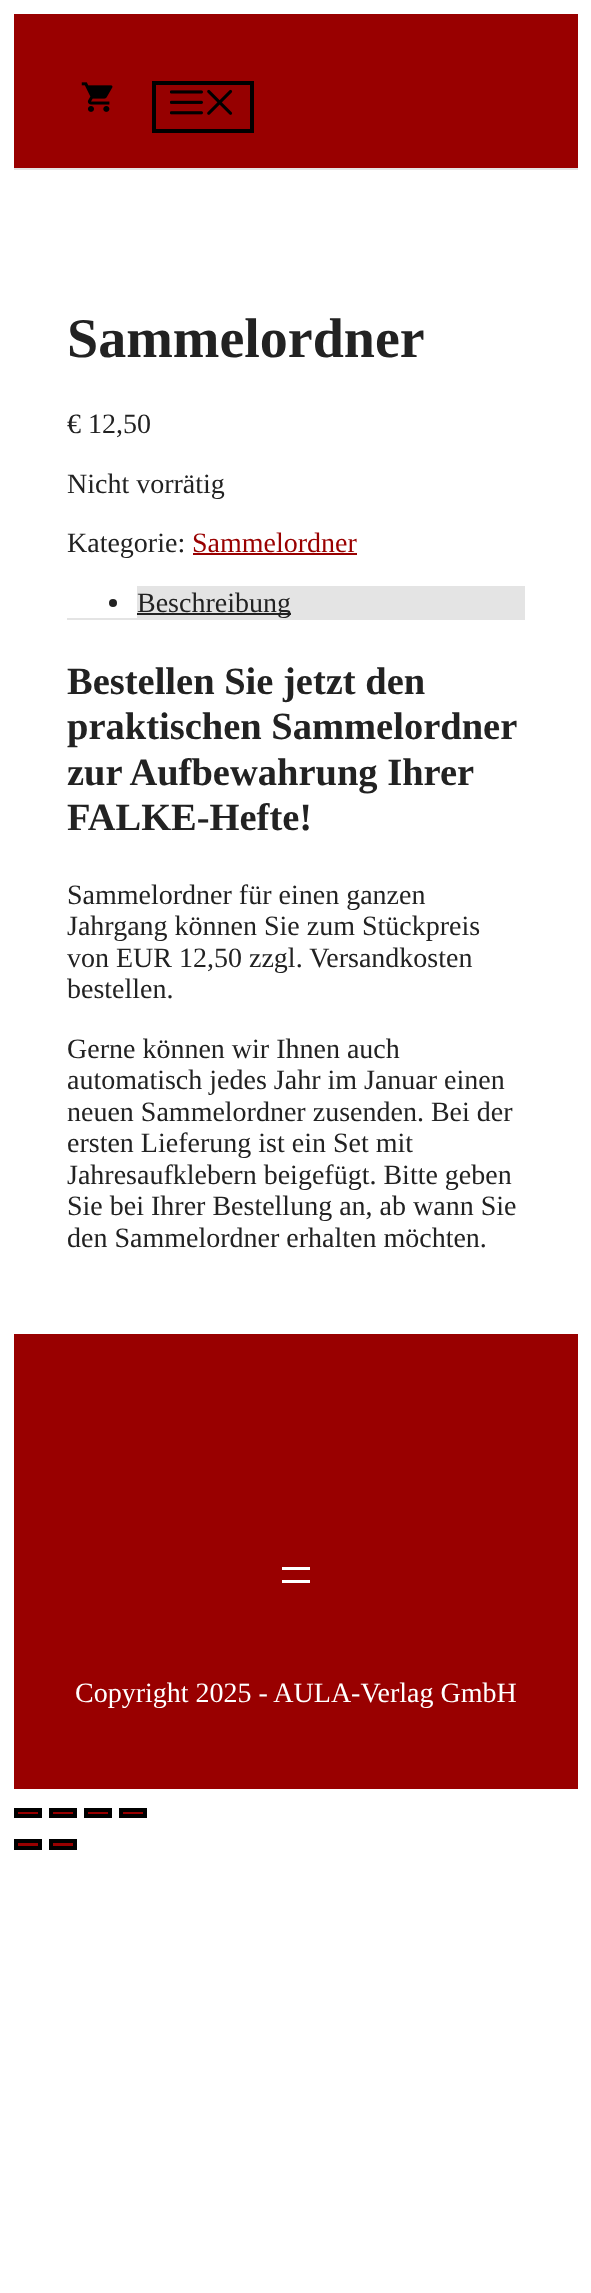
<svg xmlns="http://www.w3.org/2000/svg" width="591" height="2293">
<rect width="100%" height="100%" fill="#fff"/>
<rect x="14" y="14" width="564" height="154" fill="#900"/>
<image x="81" y="82" width="32" height="30" href="media/1.png"/>
<rect x="154" y="83" width="98" height="48" fill="#960000" stroke="#000" stroke-width="4"/>
<image x="170" y="90" width="33" height="25" href="media/2.png"/>
<image x="207" y="89" width="26" height="26" href="media/3.png"/>
<rect x="14" y="168" width="564" height="2" fill="#e4e4e4"/>
<text x="67" y="357" style="font-family:Liberation Serif;font-size:56px;font-weight:bold;fill:#222">Sammelordner</text>
<text x="67" y="433" style="font-family:Liberation Serif;font-size:28px;fill:#222">€ 12,50</text>
<text x="67" y="493" style="font-family:Liberation Serif;font-size:28px;fill:#222">Nicht vorrätig</text>
<text x="67" y="552" style="font-family:Liberation Serif;font-size:28px;fill:#222">Kategorie:</text>
<text x="192" y="552" style="font-family:Liberation Serif;font-size:28px;fill:#900">Sammelordner</text>
<rect x="193" y="553" width="164" height="2" fill="#900"/>
<rect x="67" y="618" width="458" height="2" fill="#e4e4e4"/>
<rect x="137" y="586" width="388" height="32" fill="#e4e4e4"/>
<circle cx="113" cy="603" r="4" fill="#222"/>
<rect x="137" y="613" width="154" height="2" fill="#222"/>
<text x="137" y="612" style="font-family:Liberation Serif;font-size:28px;fill:#222">Beschreibung</text>
<text x="67" y="694" style="font-family:Liberation Serif;font-size:38.5px;font-weight:bold;fill:#222">Bestellen Sie jetzt den</text>
<text x="67" y="739" style="font-family:Liberation Serif;font-size:38.5px;font-weight:bold;fill:#222">praktischen Sammelordner</text>
<text x="67" y="785" style="font-family:Liberation Serif;font-size:38.5px;font-weight:bold;fill:#222">zur Aufbewahrung Ihrer</text>
<text x="67" y="830" style="font-family:Liberation Serif;font-size:38.5px;font-weight:bold;fill:#222">FALKE-Hefte!</text>
<text x="67" y="904" style="font-family:Liberation Serif;font-size:28px;fill:#222">Sammelordner für einen ganzen</text>
<text x="67" y="935" style="font-family:Liberation Serif;font-size:28px;fill:#222">Jahrgang können Sie zum Stückpreis</text>
<text x="67" y="967" style="font-family:Liberation Serif;font-size:28px;fill:#222">von EUR 12,50 zzgl. Versandkosten</text>
<text x="67" y="998" style="font-family:Liberation Serif;font-size:28px;fill:#222">bestellen.</text>
<text x="67" y="1058" style="font-family:Liberation Serif;font-size:28px;fill:#222">Gerne können wir Ihnen auch</text>
<text x="67" y="1089" style="font-family:Liberation Serif;font-size:28px;fill:#222">automatisch jedes Jahr im Januar einen</text>
<text x="67" y="1121" style="font-family:Liberation Serif;font-size:28px;fill:#222">neuen Sammelordner zusenden. Bei der</text>
<text x="67" y="1152" style="font-family:Liberation Serif;font-size:28px;fill:#222">ersten Lieferung ist ein Set mit</text>
<text x="67" y="1184" style="font-family:Liberation Serif;font-size:28px;fill:#222">Jahresaufklebern beigefügt. Bitte geben</text>
<text x="67" y="1215" style="font-family:Liberation Serif;font-size:28px;fill:#222">Sie bei Ihrer Bestellung an, ab wann Sie</text>
<text x="67" y="1247" style="font-family:Liberation Serif;font-size:28px;fill:#222">den Sammelordner erhalten möchten.</text>
<rect x="14" y="1334" width="564" height="455" fill="#900"/>
<rect x="282" y="1567" width="28" height="3" fill="#fff"/>
<rect x="282" y="1580" width="28" height="3" fill="#fff"/>
<text x="75" y="1702" style="font-family:Liberation Serif;font-size:28px;fill:#fff">Copyright 2025 - AULA-Verlag GmbH</text>
<rect x="16" y="1810" width="24" height="6" fill="#900" stroke="#000" stroke-width="4"/>
<rect x="51" y="1810" width="24" height="6" fill="#900" stroke="#000" stroke-width="4"/>
<rect x="86" y="1810" width="24" height="6" fill="#900" stroke="#000" stroke-width="4"/>
<rect x="121" y="1810" width="24" height="6" fill="#900" stroke="#000" stroke-width="4"/>
<rect x="16" y="1841" width="24" height="7" fill="#900" stroke="#000" stroke-width="4"/>
<rect x="51" y="1841" width="24" height="7" fill="#900" stroke="#000" stroke-width="4"/>
</svg>
